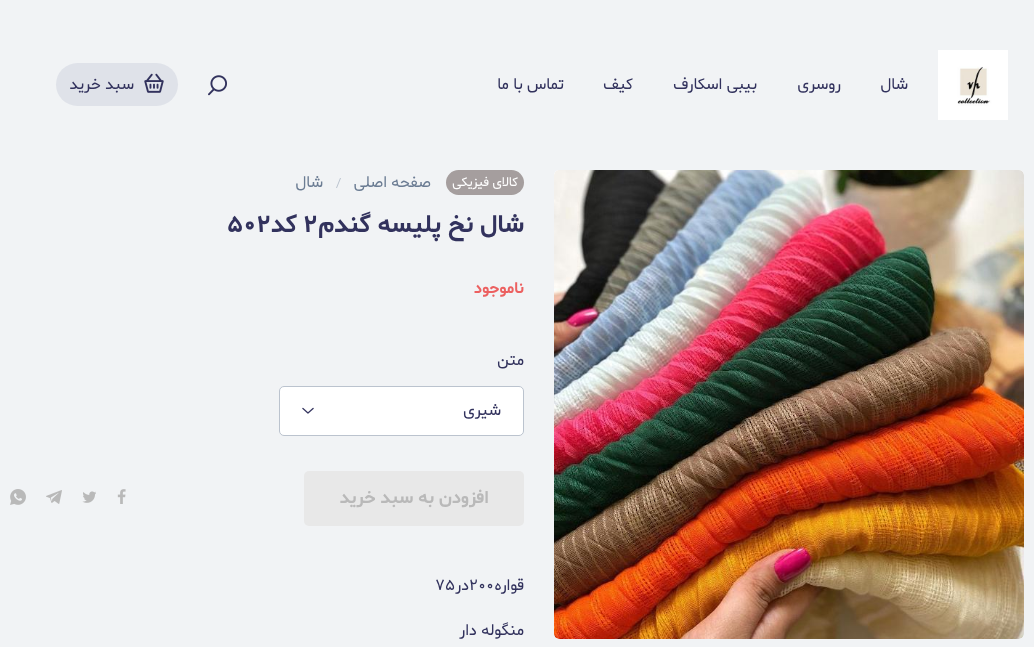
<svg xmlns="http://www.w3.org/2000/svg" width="1034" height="647">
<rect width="100%" height="100%" fill="#f1f3f5"/>
<image x="938" y="50" width="70" height="70" href="media/1.png"/>
<text x="908" y="89" style="font-family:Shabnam;font-size:16px;direction:rtl;fill:#32325d">شال</text>
<text x="841" y="89" style="font-family:Shabnam;font-size:16px;direction:rtl;fill:#32325d">روسری</text>
<text x="757" y="89" style="font-family:Shabnam;font-size:16px;direction:rtl;fill:#32325d">بیبی اسکارف</text>
<text x="633" y="89" style="font-family:Shabnam;font-size:16px;direction:rtl;fill:#32325d">کیف</text>
<text x="564" y="89" style="font-family:Shabnam;font-size:16px;direction:rtl;fill:#32325d">تماس با ما</text>
<image x="208" y="75" width="19" height="21" href="media/2.png"/>
<rect x="56" y="63" width="122" height="43" rx="21.5" fill="#dfe2e9"/>
<image x="144" y="73" width="20" height="20" href="media/3.png"/>
<text x="134" y="89" style="font-family:Shabnam;font-size:16px;direction:rtl;fill:#32325d">سبد خرید</text>
<rect x="554" y="170" width="470" height="469" rx="5" fill="#fff"/>
<image x="554" y="170" width="470" height="469" href="media/4.png"/>
<rect x="446" y="170" width="78" height="25" rx="12.5" fill="#a59e9e"/>
<text x="518" y="186" style="font-family:Shabnam;font-size:13px;direction:rtl;fill:#fff">کالای فیزیکی</text>
<text x="431" y="187" style="font-family:Shabnam;font-size:16px;direction:rtl;fill:#6b7c93">صفحه اصلی</text>
<path d="M340 178h1l-4 10h-1z" fill="#bbc3ce"/>
<text x="323" y="187" style="font-family:Shabnam;font-size:16px;direction:rtl;fill:#6b7c93">شال</text>
<text x="524" y="232" style="font-family:Shabnam;font-size:25px;font-weight:bold;direction:rtl;fill:#32325d">شال نخ پلیسه گندم</text>
<text x="303" y="232" style="font-family:Shabnam;font-size:25px;font-weight:bold;fill:#32325d">۲</text>
<text x="297" y="232" style="font-family:Shabnam;font-size:25px;font-weight:bold;direction:rtl;fill:#32325d">کد</text>
<text x="227" y="232" style="font-family:Shabnam;font-size:25px;font-weight:bold;fill:#32325d">۵۰۲</text>
<text x="524" y="293" style="font-family:Shabnam;font-size:16px;font-weight:bold;direction:rtl;fill:#ec6060">ناموجود</text>
<text x="524" y="365" style="font-family:Shabnam;font-size:16px;direction:rtl;fill:#32325d">متن</text>
<rect x="279.5" y="386.5" width="244" height="49" rx="4.5" fill="#fff" stroke="#bbc3ce"/>
<text x="501" y="415" style="font-family:Shabnam;font-size:16px;direction:rtl;fill:#32325d">شیری</text>
<image x="302" y="407" width="12" height="7" href="media/5.png"/>
<rect x="304" y="471" width="220" height="55" rx="5" fill="#e8e8e8"/>
<text x="489" y="503" style="font-family:Shabnam;font-size:18px;font-weight:bold;direction:rtl;fill:#b9b9b9">افزودن به سبد خرید</text>
<image x="117" y="489" width="9" height="15" href="media/6.png"/>
<image x="82" y="491" width="14" height="12" href="media/7.png"/>
<image x="46" y="490" width="16" height="14" href="media/8.png"/>
<image x="10" y="489" width="16" height="16" href="media/9.png"/>
<text x="524" y="590" style="font-family:Shabnam;font-size:16px;direction:rtl;fill:#32325d">قواره</text>
<text x="469" y="590" style="font-family:Shabnam;font-size:16px;fill:#32325d">۲۰۰</text>
<text x="469" y="590" style="font-family:Shabnam;font-size:16px;direction:rtl;fill:#32325d">در</text>
<text x="435" y="590" style="font-family:Shabnam;font-size:16px;fill:#32325d">۷۵</text>
<text x="524" y="635" style="font-family:Shabnam;font-size:16px;direction:rtl;fill:#32325d">منگوله دار</text>
</svg>
